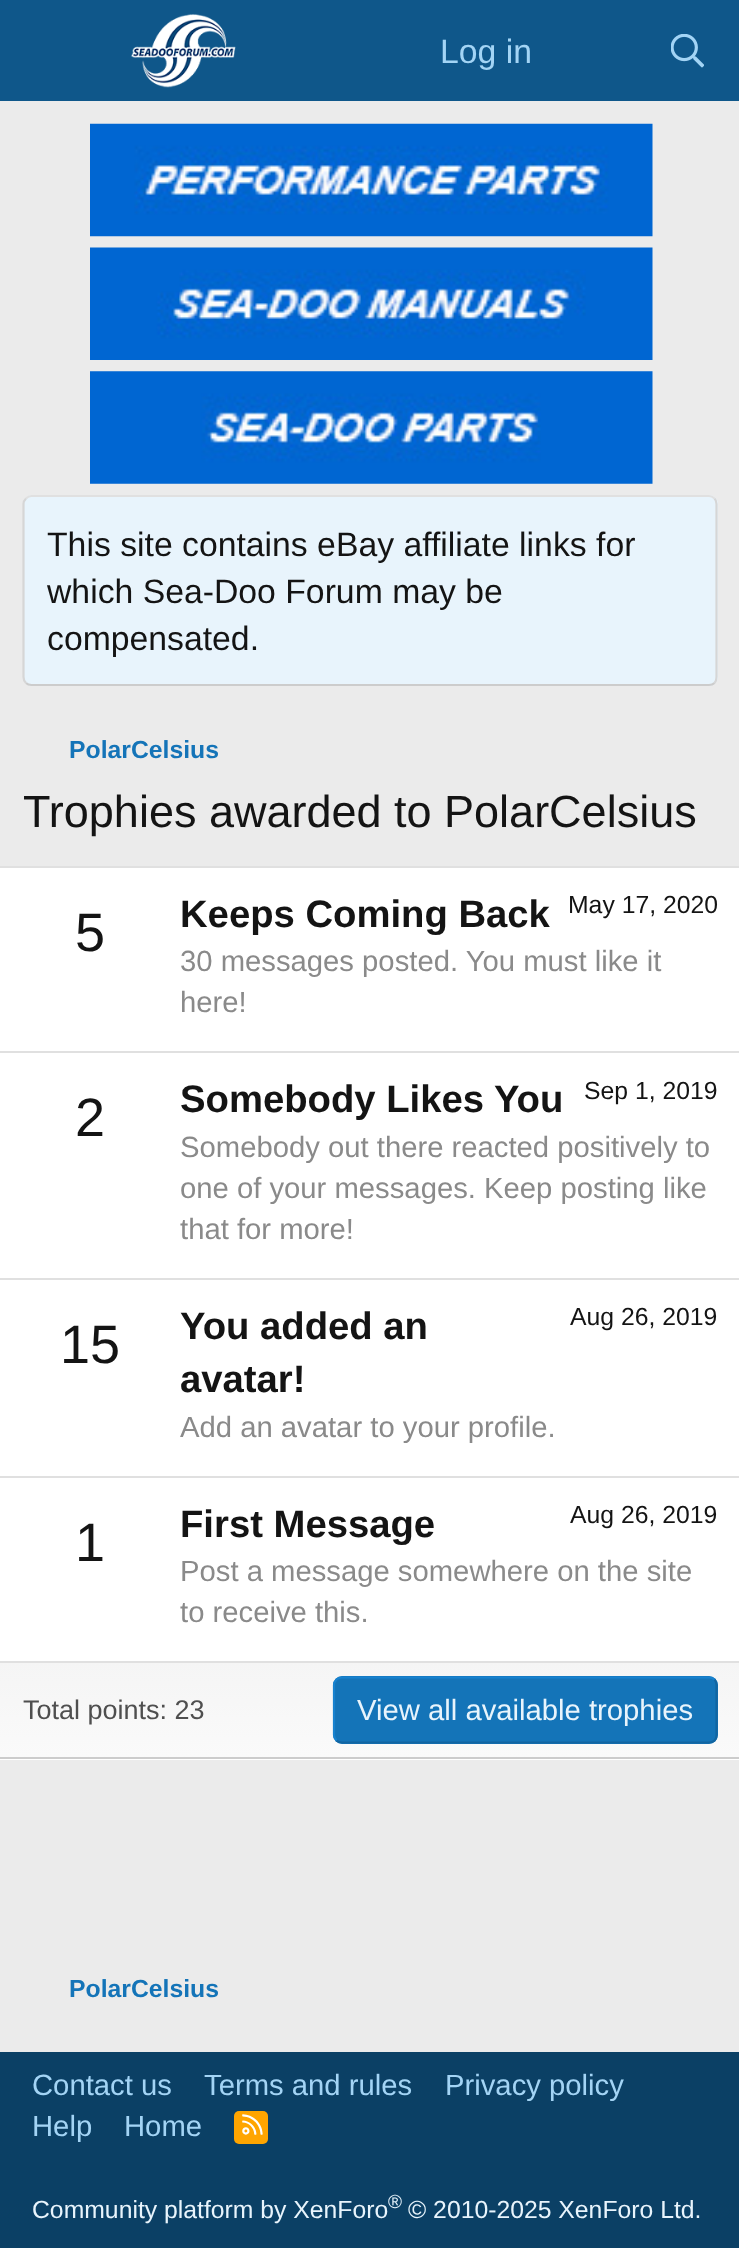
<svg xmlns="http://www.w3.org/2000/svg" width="739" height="2248">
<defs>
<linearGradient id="g1" gradientUnits="userSpaceOnUse" x1="370" y1="1663" x2="370" y2="1757"><stop offset="0" stop-color="#f5f5f5"/><stop offset="1" stop-color="#fafafa"/></linearGradient>
</defs>
<rect width="100%" height="100%" fill="#ebebeb"/>
<rect width="739" height="101" fill="#0f578a"/>
<image x="131" y="14" width="105" height="74" href="media/1.png"/>
<text x="440" y="63" style="font-family:Liberation Sans;font-size:33.75px;fill:#a3d4f5">Log in</text>
<image x="671" y="34" width="33" height="34" href="media/2.png"/>
<image x="90" y="123" width="563" height="114" href="media/3.png"/>
<image x="90" y="247" width="563" height="113" href="media/4.png"/>
<image x="90" y="371" width="563" height="113" href="media/5.png"/>
<rect x="23" y="495" width="695" height="191" rx="9" fill="#e8f4fc"/>
<path d="M26 498.5c1.5-1.5 3.5-2.5 5.5-2.5h677.5c2 0 4 1 5.5 2.5" fill="none" stroke="#e0e0e0" stroke-width="2.2"/>
<path d="M714.5 498.5c1.5 1.5 2 3.5 2 5.5v173c0 2.5-.5 4.5-2 6" fill="none" stroke="#d6d6d6" stroke-width="2.2"/>
<path d="M714.5 683c-1.5 1.5-3.5 2-5.5 2h-677.5c-2 0-4-.5-5.5-2" fill="none" stroke="#ccc" stroke-width="2.2"/>
<path d="M26 683c-1.5-1.5-2.5-3.5-2.5-6v-173c0-2 1-4 2.5-5.5" fill="none" stroke="#d6d6d6" stroke-width="2.2"/>
<text x="47" y="556" style="font-family:Liberation Sans;font-size:33.75px;fill:#141414">This site contains eBay affiliate links for</text>
<text x="47" y="603" style="font-family:Liberation Sans;font-size:33.75px;fill:#141414">which Sea-Doo Forum may be</text>
<text x="47" y="650" style="font-family:Liberation Sans;font-size:33.75px;fill:#141414">compensated.</text>
<text x="69" y="758" style="font-family:Liberation Sans;font-size:24.75px;font-weight:bold;fill:#1474b8">PolarCelsius</text>
<text x="23" y="827" style="font-family:Liberation Sans;font-size:45px;fill:#141414">Trophies awarded to PolarCelsius</text>
<rect y="868" width="739" height="892" fill="#fff"/>
<rect y="866" width="739" height="2" fill="#e0e0e0"/>
<rect y="1757" width="739" height="2" fill="#ccc"/>
<text x="75" y="951" style="font-family:Liberation Sans;font-size:54px;fill:#141414">5</text>
<text x="180" y="927" style="font-family:Liberation Sans;font-size:38.25px;font-weight:bold;fill:#141414">Keeps Coming Back</text>
<text x="568" y="913" style="font-family:Liberation Sans;font-size:24.75px;fill:#141414">May 17, 2020</text>
<text x="180" y="971" style="font-family:Liberation Sans;font-size:29.25px;fill:#8a8a8a">30 messages posted. You must like it</text>
<text x="180" y="1012" style="font-family:Liberation Sans;font-size:29.25px;fill:#8a8a8a">here!</text>
<rect y="1051" width="739" height="2" fill="#e0e0e0"/>
<text x="75" y="1136" style="font-family:Liberation Sans;font-size:54px;fill:#141414">2</text>
<text x="180" y="1112" style="font-family:Liberation Sans;font-size:38.25px;font-weight:bold;fill:#141414">Somebody Likes You</text>
<text x="584" y="1099" style="font-family:Liberation Sans;font-size:24.75px;fill:#141414">Sep 1, 2019</text>
<text x="180" y="1157" style="font-family:Liberation Sans;font-size:29.25px;fill:#8a8a8a">Somebody out there reacted positively to</text>
<text x="180" y="1198" style="font-family:Liberation Sans;font-size:29.25px;fill:#8a8a8a">one of your messages. Keep posting like</text>
<text x="180" y="1239" style="font-family:Liberation Sans;font-size:29.25px;fill:#8a8a8a">that for more!</text>
<rect y="1278" width="739" height="2" fill="#e0e0e0"/>
<text x="60" y="1363" style="font-family:Liberation Sans;font-size:54px;fill:#141414">15</text>
<text x="180" y="1339" style="font-family:Liberation Sans;font-size:38.25px;font-weight:bold;fill:#141414">You added an</text>
<text x="180" y="1392" style="font-family:Liberation Sans;font-size:38.25px;font-weight:bold;fill:#141414">avatar!</text>
<text x="570" y="1325" style="font-family:Liberation Sans;font-size:24.75px;fill:#141414">Aug 26, 2019</text>
<text x="180" y="1437" style="font-family:Liberation Sans;font-size:29.25px;fill:#8a8a8a">Add an avatar to your profile.</text>
<rect y="1476" width="739" height="2" fill="#e0e0e0"/>
<text x="75" y="1561" style="font-family:Liberation Sans;font-size:54px;fill:#141414">1</text>
<text x="180" y="1537" style="font-family:Liberation Sans;font-size:38.25px;font-weight:bold;fill:#141414">First Message</text>
<text x="570" y="1523" style="font-family:Liberation Sans;font-size:24.75px;fill:#141414">Aug 26, 2019</text>
<text x="180" y="1581" style="font-family:Liberation Sans;font-size:29.25px;fill:#8a8a8a">Post a message somewhere on the site</text>
<text x="180" y="1622" style="font-family:Liberation Sans;font-size:29.25px;fill:#8a8a8a">to receive this.</text>
<rect y="1663" width="739" height="94" fill="url(#g1)"/>
<rect y="1661" width="739" height="2" fill="#e0e0e0"/>
<text x="23" y="1719" style="font-family:Liberation Sans;font-size:27px;fill:#4f4f4f">Total points: 23</text>
<rect x="333" y="1676" width="385" height="68" rx="9" fill="#1474b8"/>
<path d="M714.5 1679.5c1.5 1.5 2 3.5 2 5.5v50c0 2-.5 4-2 5.5c-1.5 1.5-3.5 2-5.5 2h-367c-2 0-4-.5-5.5-2" fill="none" stroke="#1265a1" stroke-width="2.2"/>
<path d="M336.5 1740.5c-1.5-1.5-2.5-3.5-2.5-5.5v-50c0-2 1-4 2.5-5.5c1.5-1.5 3.5-2 5.5-2h367c2 0 4 .5 5.5 2" fill="none" stroke="#1782cf" stroke-width="2.2"/>
<text x="357" y="1720" style="font-family:Liberation Sans;font-size:29.25px;fill:#e8f4fc">View all available trophies</text>
<text x="69" y="1997" style="font-family:Liberation Sans;font-size:24.75px;font-weight:bold;fill:#1474b8">PolarCelsius</text>
<rect y="2052" width="739" height="196" fill="#0b4065"/>
<text x="32" y="2095" style="font-family:Liberation Sans;font-size:29.25px;fill:#a3d4f5">Contact us</text>
<text x="204" y="2095" style="font-family:Liberation Sans;font-size:29.25px;fill:#a3d4f5">Terms and rules</text>
<text x="445" y="2095" style="font-family:Liberation Sans;font-size:29.25px;fill:#a3d4f5">Privacy policy</text>
<text x="32" y="2136" style="font-family:Liberation Sans;font-size:29.25px;fill:#a3d4f5">Help</text>
<text x="124" y="2136" style="font-family:Liberation Sans;font-size:29.25px;fill:#a3d4f5">Home</text>
<rect x="234" y="2111" width="34" height="33" rx="5" fill="#ffa500"/>
<image x="242" y="2114" width="21" height="21" href="media/6.png"/>
<text x="32" y="2218" style="font-family:Liberation Sans;font-size:24.75px;fill:#e8f4fc">Community platform by XenForo</text>
<text x="388" y="2208" style="font-family:Liberation Sans;font-size:19px;fill:#e8f4fc">®</text>
<text x="408" y="2218" style="font-family:Liberation Sans;font-size:24.75px;fill:#e8f4fc">© 2010-2025 XenForo Ltd.</text>
</svg>
